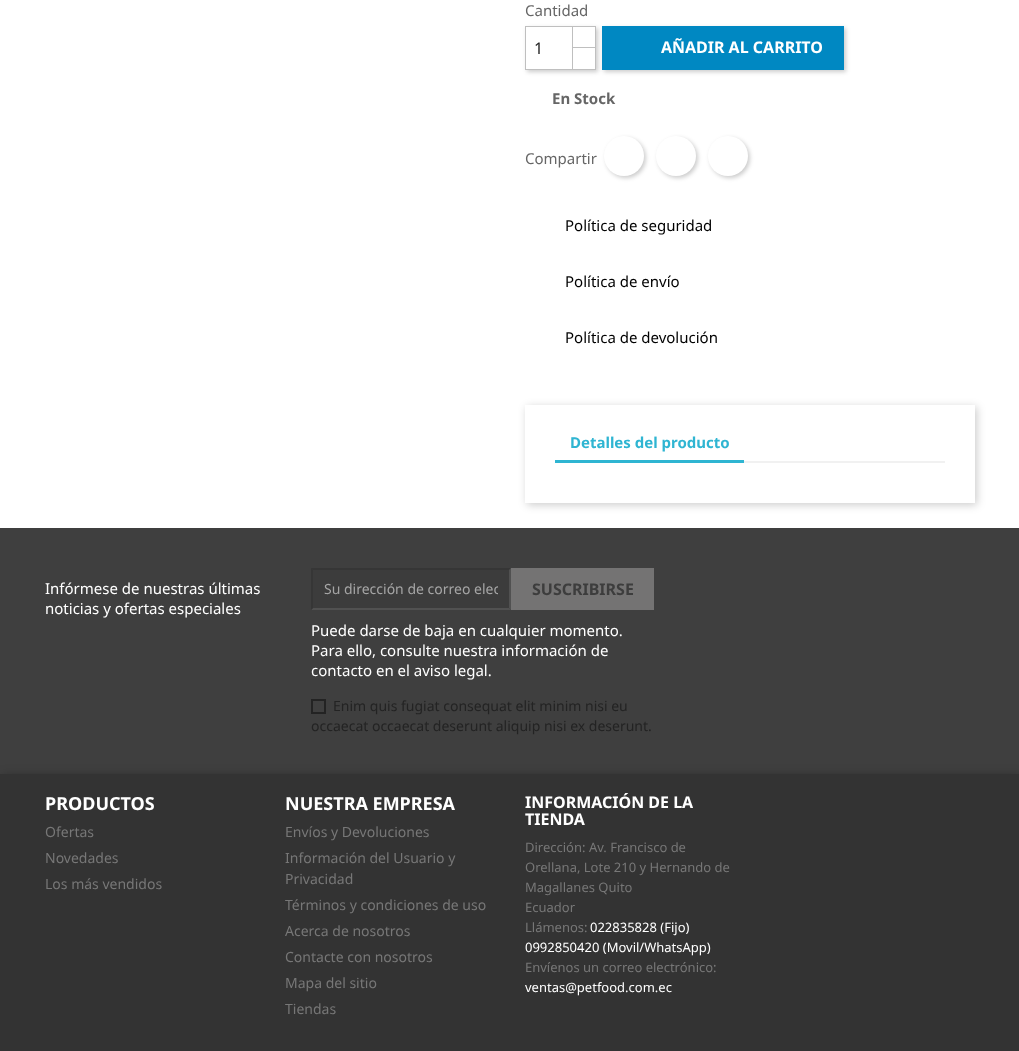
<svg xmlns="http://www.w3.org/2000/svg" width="1019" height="1051">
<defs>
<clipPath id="clip1"><path d="M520 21h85v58h-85zm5 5h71v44h-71z" clip-rule="evenodd"/></clipPath>
<clipPath id="clip2"><path d="M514 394h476v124h-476zm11 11h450v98h-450z" clip-rule="evenodd"/></clipPath>
<clipPath id="clip3"><rect x="324" y="579" width="174" height="19"/></clipPath>
</defs>
<rect width="100%" height="100%" fill="#fff"/>
<text x="525" y="16" style="font-family:Noto Sans;font-size:15px;fill:#666">Cantidad</text>
<rect x="604" y="28" width="242" height="44" fill="#00000033" filter="blur(2px)"/>
<rect x="602" y="26" width="242" height="44" fill="#0088c2"/>
<g clip-path="url(#clip1)">
<rect x="527" y="28" width="71" height="44" fill="#00000033" filter="blur(2px)"/>
</g>
<rect x="572.5" y="26.5" width="23" height="22" fill="none" stroke="#bfbfbf"/>
<rect x="573" y="48" width="22" height="1" fill="#fff"/>
<rect x="572.5" y="47.5" width="23" height="22" fill="none" stroke="#bfbfbf"/>
<rect x="525.5" y="26.5" width="47" height="43" fill="none" stroke="#bfbfbf"/>
<text x="534" y="54" style="font-family:Noto Sans;font-size:16px;fill:#232323">1</text>
<text x="661" y="53" style="font-family:Noto Sans;font-size:16px;font-weight:bold;fill:#fff">AÑADIR AL CARRITO</text>
<text x="552" y="104" style="font-family:Noto Sans;font-size:15px;font-weight:bold;fill:#666">En Stock</text>
<text x="525" y="164" style="font-family:Noto Sans;font-size:15px;fill:#666">Compartir</text>
<rect x="606" y="138" width="40" height="40" rx="20" fill="#00000033" filter="blur(2px)"/>
<circle cx="624" cy="156" r="20" fill="#fff"/>
<rect x="658" y="138" width="40" height="40" rx="20" fill="#00000033" filter="blur(2px)"/>
<circle cx="676" cy="156" r="20" fill="#fff"/>
<rect x="710" y="138" width="40" height="40" rx="20" fill="#00000033" filter="blur(2px)"/>
<circle cx="728" cy="156" r="20" fill="#fff"/>
<text x="565" y="231" style="font-family:Noto Sans;font-size:15px;fill:#000">Política de seguridad</text>
<text x="565" y="287" style="font-family:Noto Sans;font-size:15px;fill:#000">Política de envío</text>
<text x="565" y="343" style="font-family:Noto Sans;font-size:15px;fill:#000">Política de devolución</text>
<g clip-path="url(#clip2)">
<rect x="527" y="407" width="450" height="98" fill="#00000033" filter="blur(4px)"/>
</g>
<rect x="744" y="461" width="201" height="2" fill="#f1f1f1"/>
<rect x="555" y="460" width="189" height="3" fill="#2fb5d2"/>
<text x="570" y="448" style="font-family:Noto Sans;font-size:15px;font-weight:bold;fill:#2fb5d2">Detalles del producto</text>
<rect y="528" width="1019" height="246" fill="#3f3f3f"/>
<text x="45" y="594" style="font-family:Noto Sans;font-size:15px;fill:#fff">Infórmese de nuestras últimas</text>
<text x="45" y="614" style="font-family:Noto Sans;font-size:15px;fill:#fff">noticias y ofertas especiales</text>
<rect x="311" y="568" width="200" height="42" fill="#3c3c3c"/>
<path d="M311 568h200l-2 2h-196z" fill="#363636"/>
<path d="M511 568v42l-2-2v-38z" fill="#515151"/>
<path d="M511 610h-200l2-2h196z" fill="#515151"/>
<path d="M311 610v-42l2 2v38z" fill="#363636"/>
<g clip-path="url(#clip3)">
<text x="324" y="594" style="font-family:Noto Sans;font-size:14px;fill:#a5a5a5">Su dirección de correo elec</text>
</g>
<rect x="511" y="568" width="143" height="42" fill="#747373"/>
<text x="532" y="595" style="font-family:Noto Sans;font-size:16px;font-weight:bold;fill:#3d3d3d">SUSCRIBIRSE</text>
<text x="311" y="636" style="font-family:Noto Sans;font-size:15px;fill:#fff">Puede darse de baja en cualquier momento.</text>
<text x="311" y="656" style="font-family:Noto Sans;font-size:15px;fill:#fff">Para ello, consulte nuestra información de</text>
<text x="311" y="676" style="font-family:Noto Sans;font-size:15px;fill:#fff">contacto en el aviso legal.</text>
<rect x="312" y="700" width="13" height="13" fill="none" stroke="#232323" stroke-width="2"/>
<text x="333" y="711" style="font-family:Noto Sans;font-size:14px;fill:#232323">Enim quis fugiat consequat elit minim nisi eu</text>
<text x="311" y="731" style="font-family:Noto Sans;font-size:14px;fill:#232323">occaecat occaecat deserunt aliquip nisi ex deserunt.</text>
<rect x="2" y="776" width="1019" height="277" fill="#0000004d" filter="blur(5.5px)"/>
<rect y="774" width="1019" height="277" fill="#333"/>
<text x="45" y="810" style="font-family:Noto Sans;font-size:18px;font-weight:bold;fill:#fff">PRODUCTOS</text>
<text x="45" y="837" style="font-family:Noto Sans;font-size:14px;fill:#777">Ofertas</text>
<text x="45" y="863" style="font-family:Noto Sans;font-size:14px;fill:#777">Novedades</text>
<text x="45" y="889" style="font-family:Noto Sans;font-size:14px;fill:#777">Los más vendidos</text>
<text x="285" y="810" style="font-family:Noto Sans;font-size:18px;font-weight:bold;fill:#fff">NUESTRA EMPRESA</text>
<text x="285" y="837" style="font-family:Noto Sans;font-size:14px;fill:#777">Envíos y Devoluciones</text>
<text x="285" y="863" style="font-family:Noto Sans;font-size:14px;fill:#777">Información del Usuario y</text>
<text x="285" y="884" style="font-family:Noto Sans;font-size:14px;fill:#777">Privacidad</text>
<text x="285" y="910" style="font-family:Noto Sans;font-size:14px;fill:#777">Términos y condiciones de uso</text>
<text x="285" y="936" style="font-family:Noto Sans;font-size:14px;fill:#777">Acerca de nosotros</text>
<text x="285" y="962" style="font-family:Noto Sans;font-size:14px;fill:#777">Contacte con nosotros</text>
<text x="285" y="988" style="font-family:Noto Sans;font-size:14px;fill:#777">Mapa del sitio</text>
<text x="285" y="1014" style="font-family:Noto Sans;font-size:14px;fill:#777">Tiendas</text>
<text x="525" y="808" style="font-family:Noto Sans;font-size:16px;font-weight:bold;fill:#fff">INFORMACIÓN DE LA</text>
<text x="525" y="825" style="font-family:Noto Sans;font-size:16px;font-weight:bold;fill:#fff">TIENDA</text>
<text x="525" y="852" style="font-family:Noto Sans;font-size:13px;fill:#777">Dirección: Av. Francisco de</text>
<text x="525" y="872" style="font-family:Noto Sans;font-size:13px;fill:#777">Orellana, Lote 210 y Hernando de</text>
<text x="525" y="892" style="font-family:Noto Sans;font-size:13px;fill:#777">Magallanes Quito</text>
<text x="525" y="912" style="font-family:Noto Sans;font-size:13px;fill:#777">Ecuador</text>
<text x="525" y="932" style="font-family:Noto Sans;font-size:13px;fill:#777">Llámenos:</text>
<text x="590" y="932" style="font-family:Noto Sans;font-size:13px;fill:#fff">022835828 (Fijo)</text>
<text x="525" y="952" style="font-family:Noto Sans;font-size:13px;fill:#fff">0992850420 (Movil/WhatsApp)</text>
<text x="525" y="972" style="font-family:Noto Sans;font-size:13px;fill:#777">Envíenos un correo electrónico:</text>
<text x="525" y="992" style="font-family:Noto Sans;font-size:13px;fill:#fff">ventas@petfood.com.ec</text>
</svg>
